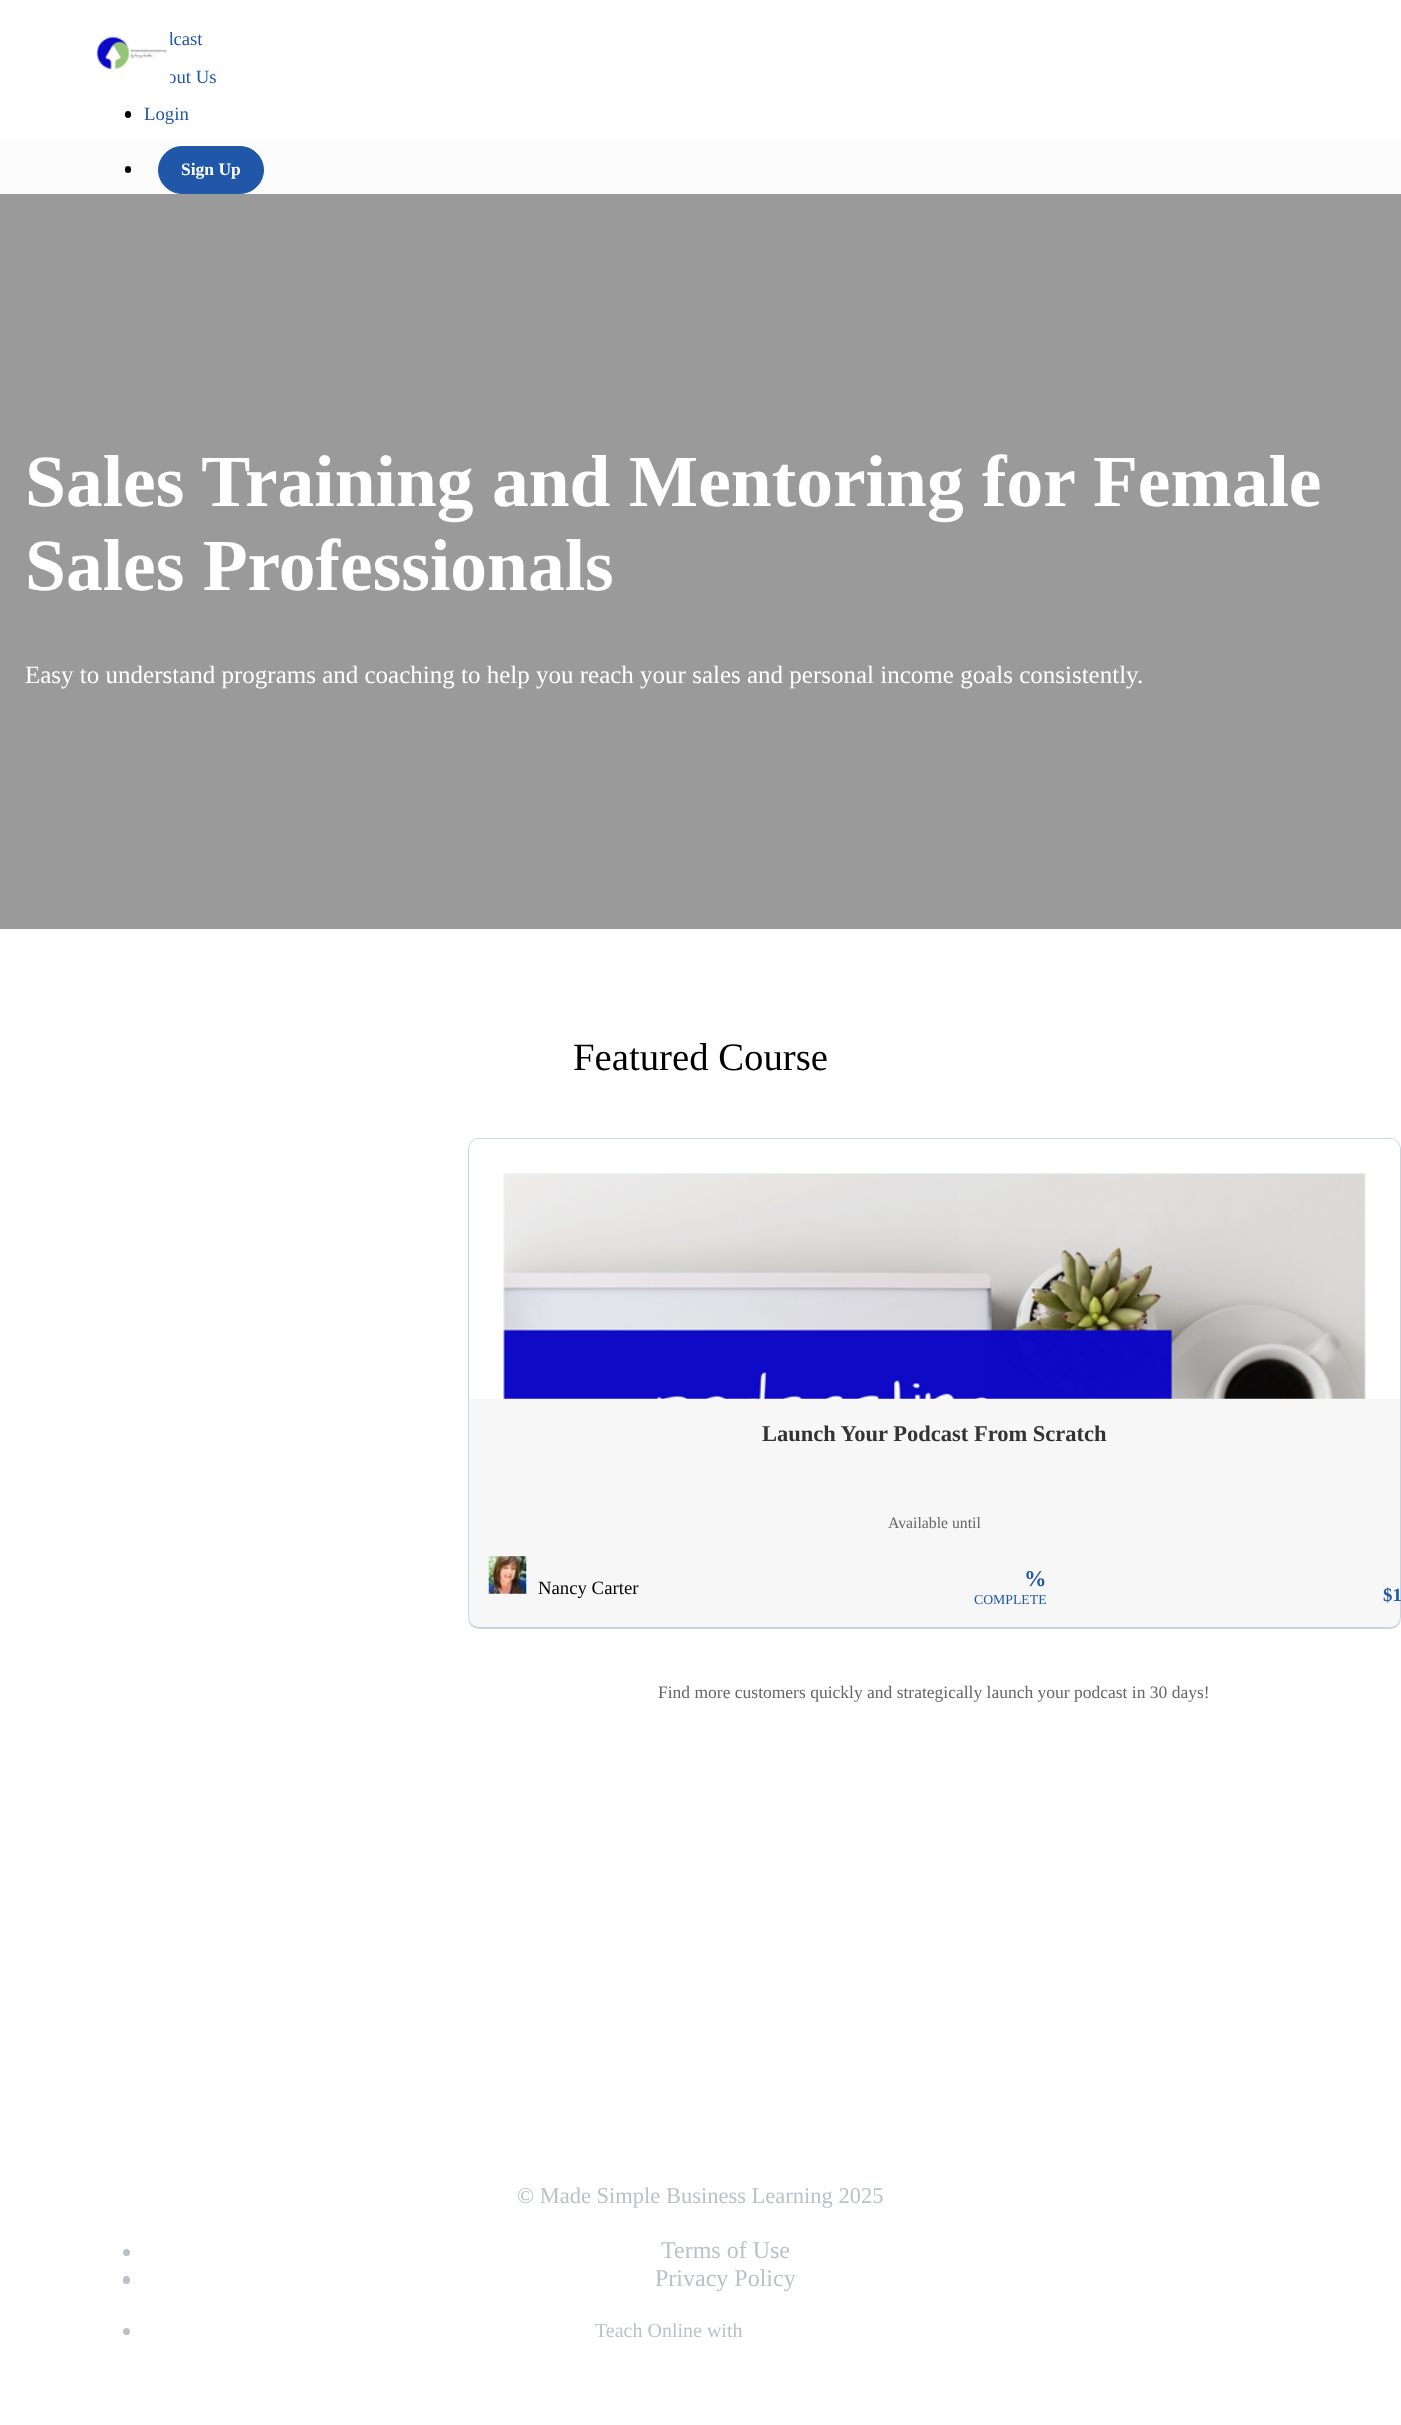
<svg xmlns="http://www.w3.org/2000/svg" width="1401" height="2425">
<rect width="100%" height="100%" fill="#fff"/>
<text x="164" y="45" style="font-family:Liberation Serif;font-size:18.75px;fill:#2057a8">dcast</text>
<text x="167" y="83" style="font-family:Liberation Serif;font-size:18.75px;fill:#2057a8">out Us</text>
<image x="96" y="32" width="74" height="52" href="media/1.png"/>
<rect x="125" y="111" width="6" height="7" rx="3" fill="#000"/>
<text x="144" y="120" style="font-family:Liberation Serif;font-size:18.75px;fill:#2057a8">Login</text>
<rect y="139" width="1401" height="55" fill="#fcfcfc"/>
<rect x="125" y="166" width="6" height="7" rx="3" fill="#000"/>
<rect x="158.5" y="146.5" width="105" height="47" rx="23.5" fill="#2057a8" stroke="#2057a8"/>
<text x="181" y="175" style="font-family:Liberation Serif;font-size:17.5px;font-weight:bold;fill:#fff">Sign Up</text>
<rect y="194" width="1401" height="735" fill="#9a9a9a"/>
<text x="25" y="506" style="font-family:Liberation Serif;font-size:73.5px;font-weight:bold;fill:#fff">Sales Training and Mentoring for Female</text>
<text x="25" y="590" style="font-family:Liberation Serif;font-size:73.5px;font-weight:bold;fill:#fff">Sales Professionals</text>
<text x="25" y="683" style="font-family:Liberation Serif;font-size:25px;fill:#fff">Easy to understand programs and coaching to help you reach your sales and personal income goals consistently.</text>
<text x="573" y="1070" style="font-family:Liberation Serif;font-size:38.75px;fill:#000">Featured Course</text>
<path d="M468 1620c1 5 6 9 11 9h911c6 0 11-5 11-10c-1 5-6 9-11 9h-911c-5 0-9-4-11-8z" fill="#c7d4e6"/>
<rect x="468.5" y="1138.5" width="932" height="489" rx="10.5" fill="#f7f7f7" stroke="#c7d4e6"/>
<image x="469" y="1139" width="931" height="260" href="media/2.png"/>
<text x="762" y="1441" style="font-family:Liberation Serif;font-size:22.5px;font-weight:bold;fill:#333">Launch Your Podcast From Scratch</text>
<text x="888" y="1528" style="font-family:Liberation Serif;font-size:15.75px;fill:#666">Available until</text>
<text x="658" y="1698" style="font-family:Liberation Serif;font-size:17.5px;fill:#666">Find more customers quickly and strategically launch your podcast in 30 days!</text>
<image x="488" y="1556" width="39" height="38" href="media/3.png"/>
<text x="538" y="1594" style="font-family:Liberation Serif;font-size:18.75px;fill:#000">Nancy Carter</text>
<text x="1024" y="1586" style="font-family:Liberation Serif;font-size:22.5px;font-weight:bold;fill:#2057a8">%</text>
<text x="974" y="1604" style="font-family:Liberation Serif;font-size:13.75px;fill:#2057a8">COMPLETE</text>
<text x="1383" y="1601" style="font-family:Liberation Serif;font-size:18.75px;font-weight:bold;fill:#2057a8">$1</text>
<text x="517" y="2203" style="font-family:Liberation Serif;font-size:22.5px;fill:#bac1c7">© Made Simple Business Learning 2025</text>
<circle cx="126.5" cy="2252.5" r="3.5" fill="#bac1c7"/>
<text x="661" y="2258" style="font-family:Liberation Serif;font-size:24px;fill:#bac1c7">Terms of Use</text>
<rect x="123" y="2276" width="7" height="8" rx="3.5" fill="#bac1c7"/>
<text x="655" y="2286" style="font-family:Liberation Serif;font-size:24px;fill:#bac1c7">Privacy Policy</text>
<circle cx="126.5" cy="2331.5" r="3.5" fill="#bac1c7"/>
<text x="595" y="2337" style="font-family:Liberation Serif;font-size:20px;fill:#bac1c7">Teach Online with</text>
</svg>
